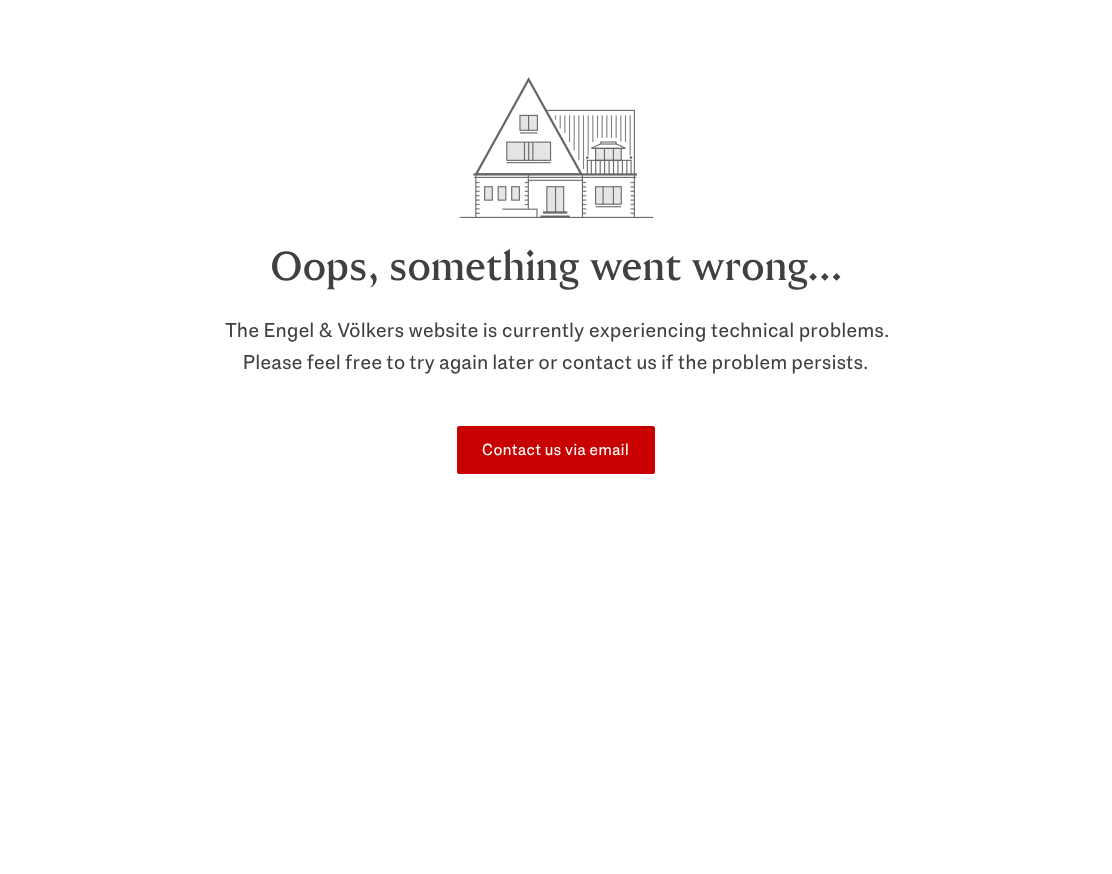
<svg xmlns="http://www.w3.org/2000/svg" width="1112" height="874">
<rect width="100%" height="100%" fill="#fff"/>
<image x="459" y="77" width="195" height="141" href="media/1.png"/>
<text x="270" y="280" style="font-family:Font;font-size:40px;font-weight:bold;fill:#404040">Oops, something went wrong...</text>
<text x="225" y="337" word-spacing="0.25" style="font-family:Font;font-size:20px;letter-spacing:0.48px;fill:#404040">The Engel &amp; Völkers website is currently experiencing technical problems.</text>
<text x="243" y="369" style="font-family:Font;font-size:20px;letter-spacing:0.48px;fill:#404040">Please feel free to try again later or contact us if the problem persists.</text>
<rect x="457.5" y="426.5" width="197" height="47" rx="1.5" fill="#c80000" stroke="#c80000"/>
<text x="482" y="455" style="font-family:Font;font-size:16px;letter-spacing:0.48px;fill:#fff">Contact us via email</text>
</svg>
